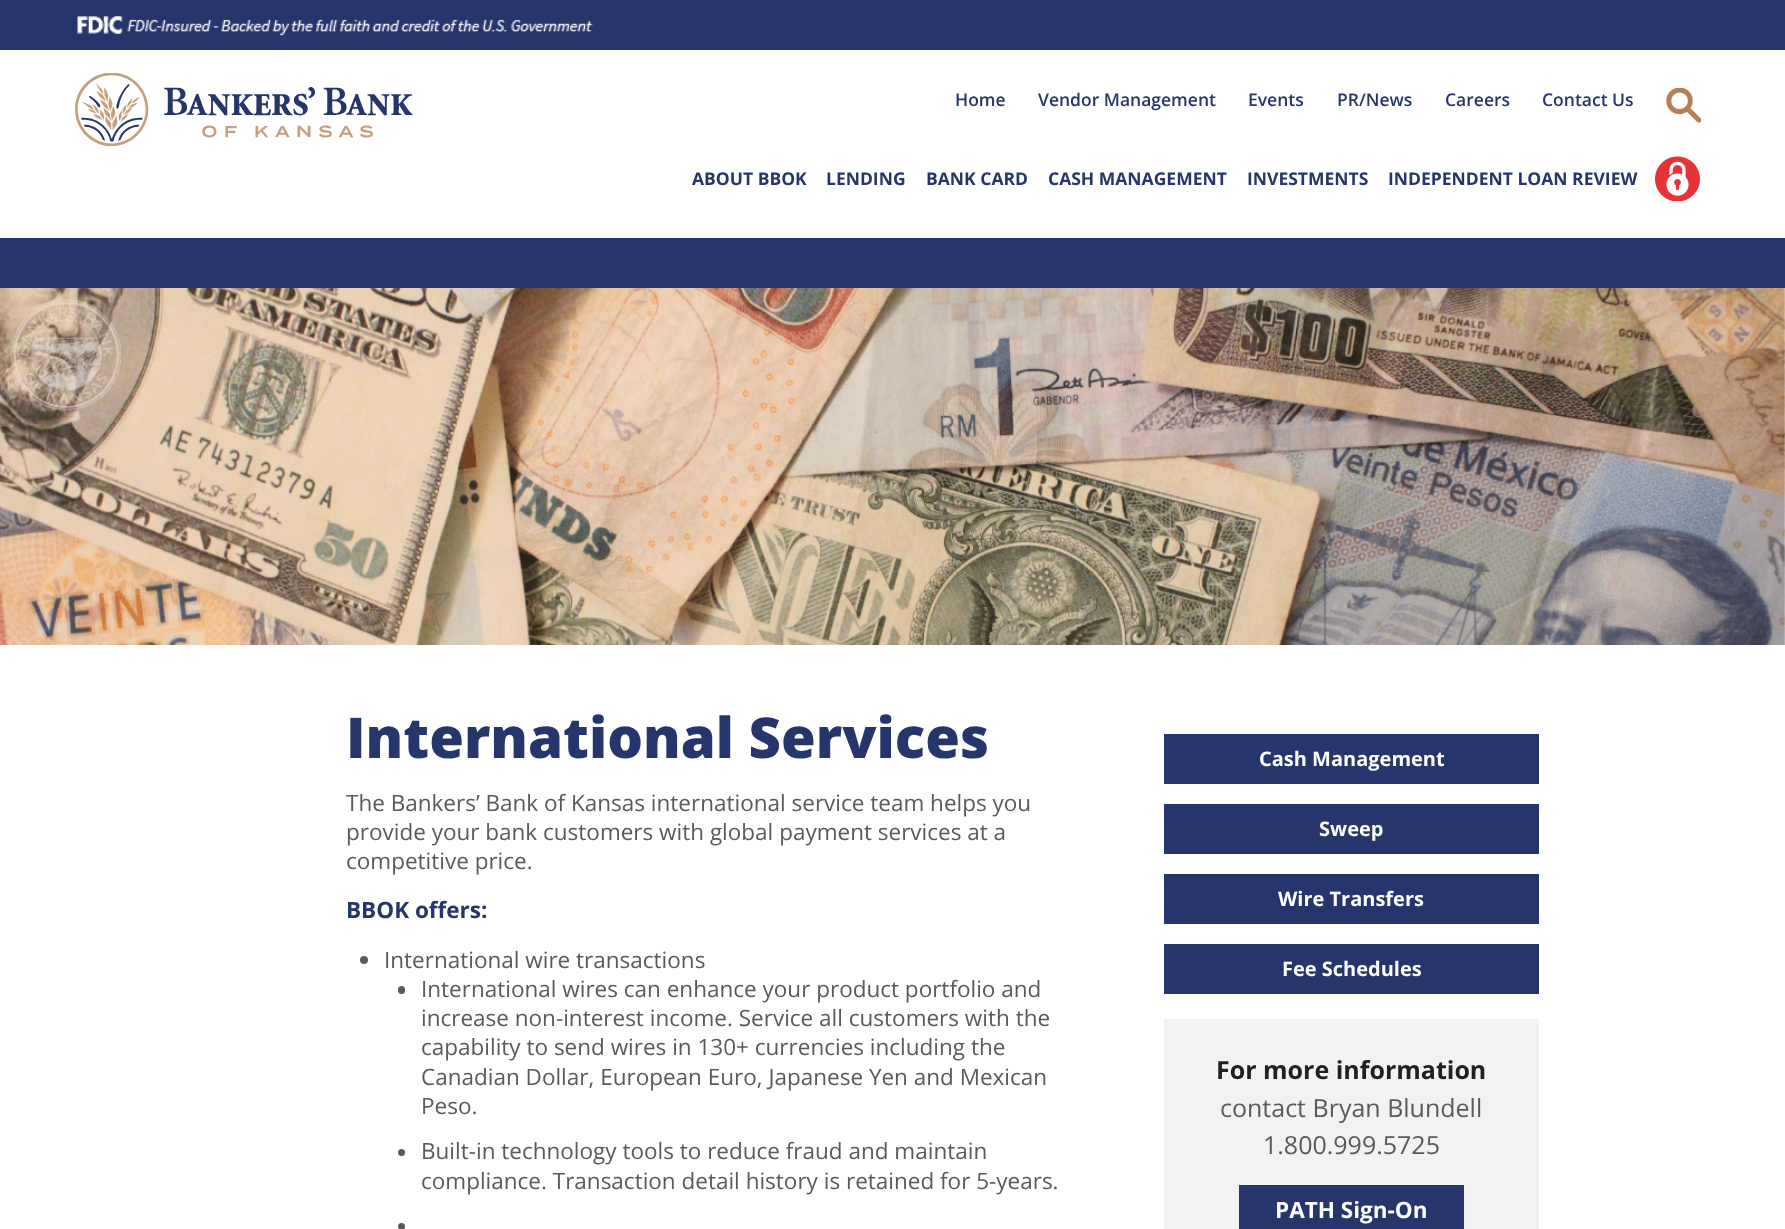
<svg xmlns="http://www.w3.org/2000/svg" width="1785" height="1229">
<rect width="100%" height="100%" fill="#fff"/>
<rect width="1785" height="50" fill="#26366c"/>
<image x="77" y="15" width="516" height="21" href="media/1.png"/>
<text x="955" y="106" style="font-family:Open Sans;font-size:17.5px;font-weight:600;fill:#26366c">Home</text>
<text x="1038" y="106" style="font-family:Open Sans;font-size:17.5px;font-weight:600;fill:#26366c">Vendor Management</text>
<text x="1248" y="106" style="font-family:Open Sans;font-size:17.5px;font-weight:600;fill:#26366c">Events</text>
<text x="1337" y="106" style="font-family:Open Sans;font-size:17.5px;font-weight:600;fill:#26366c">PR/News</text>
<text x="1445" y="106" style="font-family:Open Sans;font-size:17.5px;font-weight:600;fill:#26366c">Careers</text>
<text x="1542" y="106" style="font-family:Open Sans;font-size:17.5px;font-weight:600;fill:#26366c">Contact Us</text>
<image x="1666" y="88" width="35" height="35" href="media/2.png"/>
<text x="692" y="185" style="font-family:Open Sans;font-size:17.5px;font-weight:bold;fill:#26366c">ABOUT BBOK</text>
<text x="826" y="185" style="font-family:Open Sans;font-size:17.5px;font-weight:bold;fill:#26366c">LENDING</text>
<text x="926" y="185" style="font-family:Open Sans;font-size:17.5px;font-weight:bold;fill:#26366c">BANK CARD</text>
<text x="1048" y="185" style="font-family:Open Sans;font-size:17.5px;font-weight:bold;fill:#26366c">CASH MANAGEMENT</text>
<text x="1247" y="185" style="font-family:Open Sans;font-size:17.5px;font-weight:bold;fill:#26366c">INVESTMENTS</text>
<text x="1388" y="185" style="font-family:Open Sans;font-size:17.5px;font-weight:bold;fill:#26366c">INDEPENDENT LOAN REVIEW</text>
<image x="1655" y="156" width="45" height="45" href="media/3.png"/>
<rect y="238" width="1785" height="50" fill="#26366c"/>
<image x="75" y="73" width="338" height="73" href="media/4.png"/>
<image x="0" y="288" width="1785" height="357" href="media/5.png"/>
<text x="346" y="758" style="font-family:Open Sans;font-size:56.25px;font-weight:800;fill:#26366c">International Services</text>
<text x="346" y="811" style="font-family:Open Sans;font-size:22.5px;fill:#595a5c">The Bankers’ Bank of Kansas international service team helps you</text>
<text x="346" y="840" style="font-family:Open Sans;font-size:22.5px;fill:#595a5c">provide your bank customers with global payment services at a</text>
<text x="346" y="869" style="font-family:Open Sans;font-size:22.5px;fill:#595a5c">competitive price.</text>
<text x="346" y="918" style="font-family:Open Sans;font-size:22.5px;font-weight:bold;fill:#26366c">BBOK offers:</text>
<circle cx="364" cy="960" r="4" fill="#595a5c"/>
<text x="384" y="968" style="font-family:Open Sans;font-size:22.5px;fill:#595a5c">International wire transactions</text>
<rect x="398" y="986" width="7" height="8" rx="3.5" fill="#595a5c"/>
<text x="421" y="997" style="font-family:Open Sans;font-size:22.5px;fill:#595a5c">International wires can enhance your product portfolio and</text>
<text x="421" y="1026" style="font-family:Open Sans;font-size:22.5px;fill:#595a5c">increase non-interest income. Service all customers with the</text>
<text x="421" y="1055" style="font-family:Open Sans;font-size:22.5px;fill:#595a5c">capability to send wires in 130+ currencies including the</text>
<text x="421" y="1085" style="font-family:Open Sans;font-size:22.5px;fill:#595a5c">Canadian Dollar, European Euro, Japanese Yen and Mexican</text>
<text x="421" y="1114" style="font-family:Open Sans;font-size:22.5px;fill:#595a5c">Peso.</text>
<circle cx="401.5" cy="1152.5" r="3.5" fill="#595a5c"/>
<text x="421" y="1159" style="font-family:Open Sans;font-size:22.5px;fill:#595a5c">Built-in technology tools to reduce fraud and maintain</text>
<text x="421" y="1189" style="font-family:Open Sans;font-size:22.5px;fill:#595a5c">compliance. Transaction detail history is retained for 5-years.</text>
<circle cx="401.5" cy="1226.5" r="3.5" fill="#595a5c"/>
<rect x="1164" y="734" width="375" height="50" fill="#26366c"/>
<text x="1259" y="766" style="font-family:Open Sans;font-size:20px;font-weight:bold;fill:#fefefe">Cash Management</text>
<rect x="1164" y="804" width="375" height="50" fill="#26366c"/>
<text x="1319" y="836" style="font-family:Open Sans;font-size:20px;font-weight:bold;fill:#fefefe">Sweep</text>
<rect x="1164" y="874" width="375" height="50" fill="#26366c"/>
<text x="1278" y="906" style="font-family:Open Sans;font-size:20px;font-weight:bold;fill:#fefefe">Wire Transfers</text>
<rect x="1164" y="944" width="375" height="50" fill="#26366c"/>
<text x="1282" y="976" style="font-family:Open Sans;font-size:20px;font-weight:bold;fill:#fefefe">Fee Schedules</text>
<rect x="1164" y="1019" width="375" height="210" fill="#f2f2f2"/>
<text x="1216" y="1079" style="font-family:Open Sans;font-size:25px;font-weight:bold;fill:#231f20">For more information</text>
<text x="1220" y="1117" style="font-family:Open Sans;font-size:25px;fill:#595a5c">contact Bryan Blundell</text>
<text x="1263" y="1154" style="font-family:Open Sans;font-size:25px;fill:#595a5c">1.800.999.5725</text>
<rect x="1239" y="1185" width="225" height="44" fill="#26366c"/>
<text x="1275" y="1218" style="font-family:Open Sans;font-size:22.5px;font-weight:bold;fill:#fefefe">PATH Sign-On</text>
</svg>
